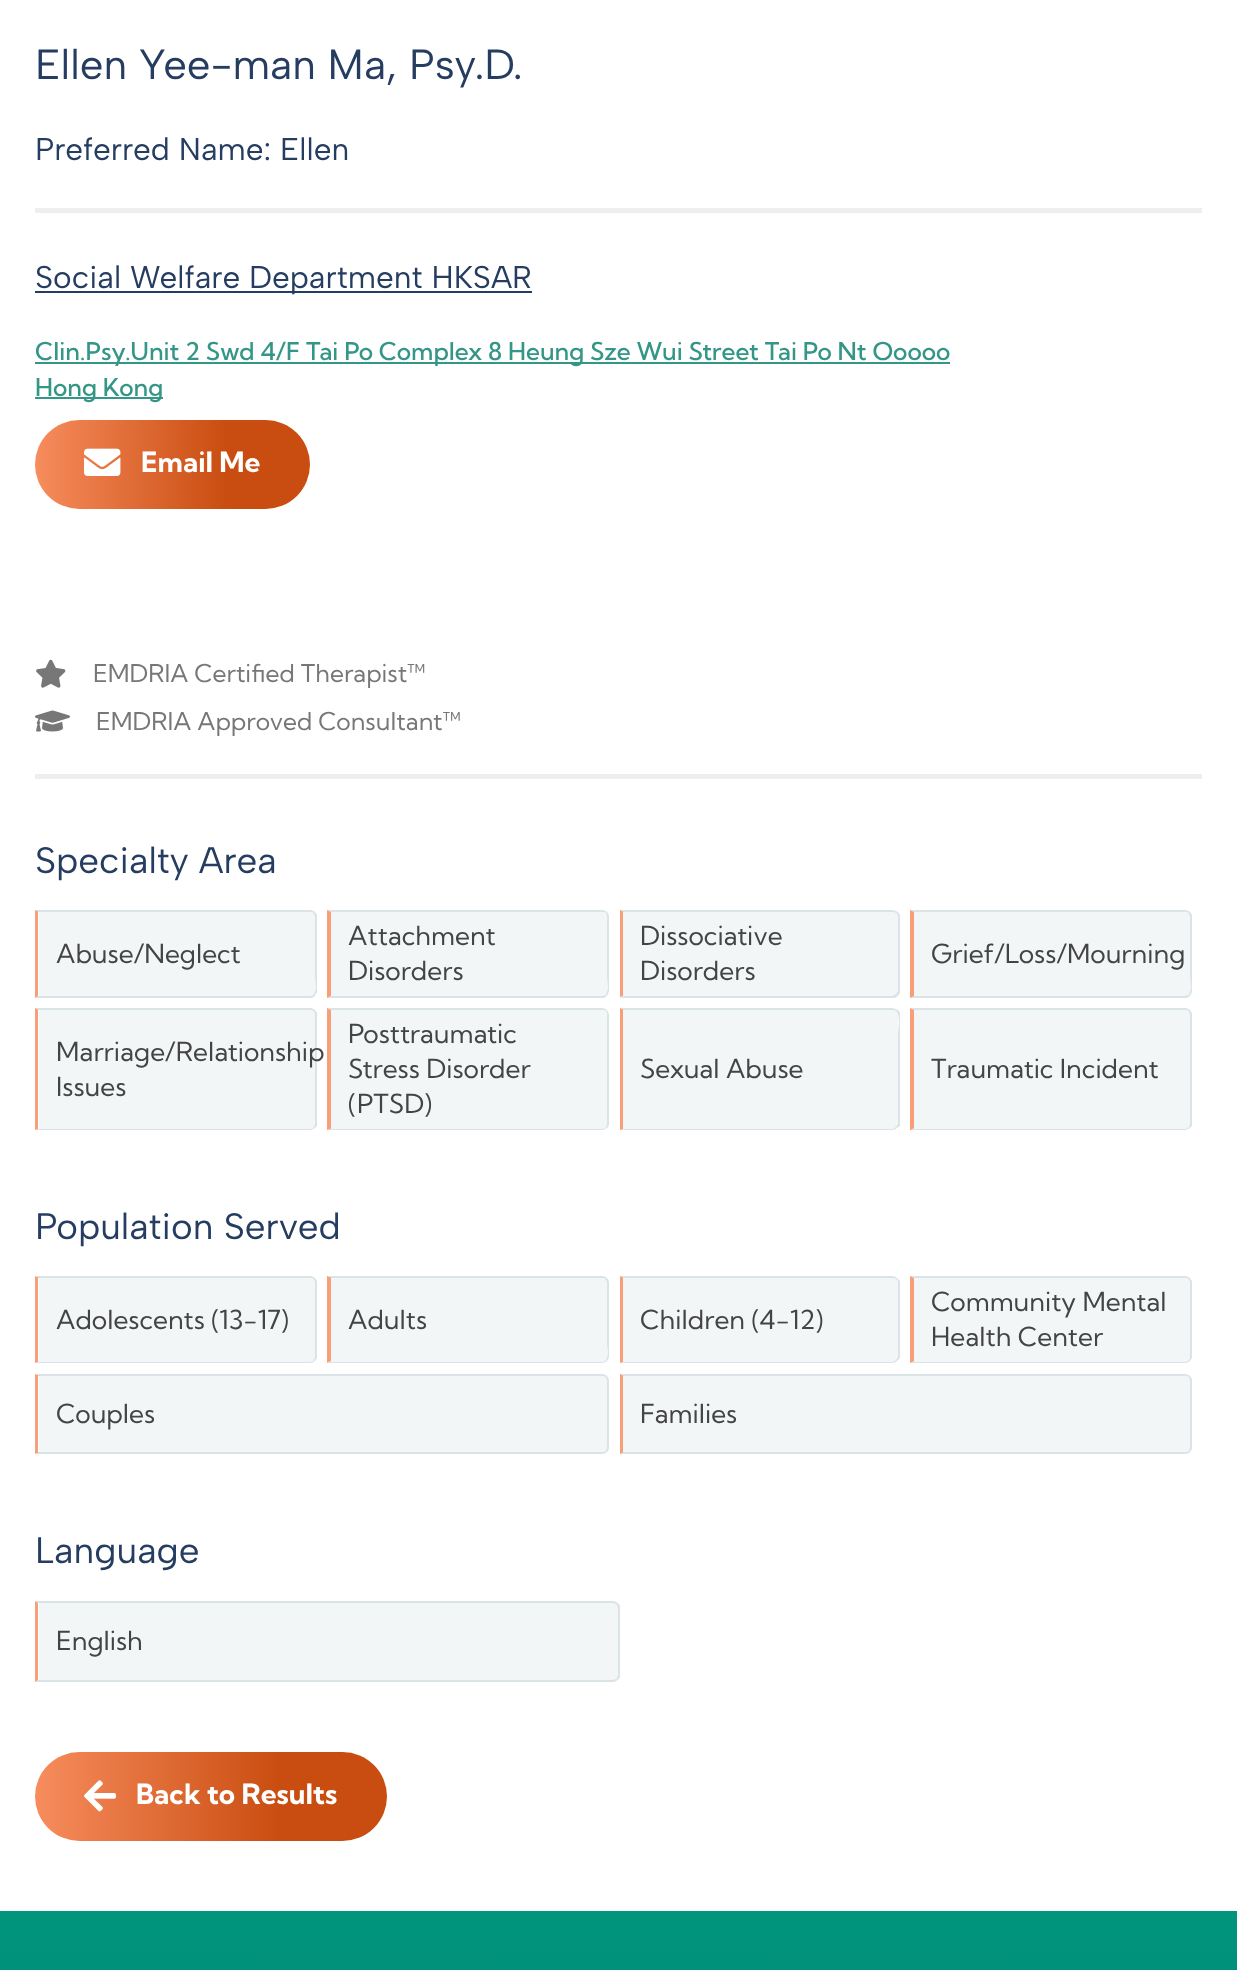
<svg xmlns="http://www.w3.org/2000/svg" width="1237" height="1970">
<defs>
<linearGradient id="g1" gradientUnits="userSpaceOnUse" x1="35" y1="465" x2="310" y2="465"><stop offset="0" stop-color="#f78c5d"/><stop offset="0.7" stop-color="#c94d10"/></linearGradient>
<linearGradient id="g2" gradientUnits="userSpaceOnUse" x1="35" y1="1796" x2="387" y2="1796"><stop offset="0" stop-color="#f78c5d"/><stop offset="0.7" stop-color="#c94d10"/></linearGradient>
<linearGradient id="g3" gradientUnits="userSpaceOnUse" x1="619" y1="1911" x2="619" y2="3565"><stop offset="0" stop-color="#01957c"/><stop offset="1" stop-color="#0a2754"/></linearGradient>
</defs>
<rect width="100%" height="100%" fill="#fff"/>
<text x="35" y="79" style="font-family:Albert Sans;font-size:42px;fill:#253d60">Ellen Yee-man Ma, Psy.D.</text>
<text x="35" y="160" style="font-family:Albert Sans;font-size:31.5px;fill:#253d60">Preferred Name: Ellen</text>
<rect x="35" y="208" width="1167" height="5" fill="#eee"/>
<rect x="35" y="291" width="497" height="2" fill="#253d60"/>
<text x="35" y="288" style="font-family:Albert Sans;font-size:31.5px;fill:#253d60">Social Welfare Department HKSAR</text>
<rect x="35" y="362" width="915" height="2" fill="#349686"/>
<text x="35" y="360" style="font-family:Kumbh Sans;font-size:24.5px;font-weight:500;fill:#349686">Clin.Psy.Unit 2 Swd 4/F Tai Po Complex 8 Heung Sze Wui Street Tai Po Nt Ooooo</text>
<rect x="35" y="397" width="128" height="2" fill="#349686"/>
<text x="35" y="396" style="font-family:Kumbh Sans;font-size:24.5px;font-weight:500;fill:#349686">Hong Kong</text>
<rect x="35" y="420" width="275" height="89" rx="44.5" fill="url(#g1)"/>
<image x="84" y="448" width="37" height="28" href="media/1.png"/>
<text x="141" y="472" style="font-family:Kumbh Sans;font-size:28px;font-weight:bold;fill:#fff">Email Me</text>
<image x="36" y="659" width="30" height="29" href="media/2.png"/>
<text x="93" y="682" style="font-family:Kumbh Sans;font-size:24.5px;fill:#777">EMDRIA Certified Therapist™</text>
<image x="35" y="710" width="35" height="22" href="media/3.png"/>
<text x="96" y="730" style="font-family:Kumbh Sans;font-size:24.5px;fill:#777">EMDRIA Approved Consultant™</text>
<rect x="35" y="774" width="1167" height="5" fill="#eee"/>
<text x="35" y="873" style="font-family:Albert Sans;font-size:36.75px;fill:#253d60">Specialty Area</text>
<path d="M39 912h271c3 0 5 2 5 5v74c0 3-2 5-5 5h-271z" fill="#f3f6f7"/>
<path d="M35 910l4 2h271c1 0 3 0 3 1l2-1c-1-1-3-2-5-2z" fill="#dae3e6"/>
<path d="M317 992l-2 4l-1-2c3-4 1-14 1-16v-62l-2-3l2-1l2 3z" fill="#dae3e6"/>
<path d="M312 998h-277l3-2h272c1 0 3-1 4-2l1 2z" fill="#dae3e6"/>
<path d="M35 910v88l3-2v-84h1z" fill="#f89e78"/>
<text x="56" y="963" style="font-family:Kumbh Sans;font-size:26.25px;fill:#444">Abuse/Neglect</text>
<path d="M331 912h271c3 0 5 2 5 5v74c0 3-2 5-5 5h-271z" fill="#f3f6f7"/>
<path d="M327 910l4 2h271c2 0 3 0 4 1l1-1c-1-1-3-2-5-2z" fill="#dae3e6"/>
<path d="M609 990v-73c0-2-1-4-2-5l-1 1l1 3v62c0 2 2 12-1 16l1 2c1-2 2-4 2-6z" fill="#dae3e6"/>
<path d="M607 996l-3 2h-277l4-2h271c2 0 3-1 4-2z" fill="#dae3e6"/>
<path d="M331 912l-4-2v88l4-2z" fill="#f89e78"/>
<text x="348" y="945" style="font-family:Kumbh Sans;font-size:26.25px;fill:#444">Attachment</text>
<text x="348" y="980" style="font-family:Kumbh Sans;font-size:26.25px;fill:#444">Disorders</text>
<path d="M623 912h270c3 0 5 2 5 5v74c0 3-2 5-5 5h-270z" fill="#f3f6f7"/>
<path d="M620 910l4 2h268c2 0 3 0 4 1l2-1c-2-1-4-2-6-2z" fill="#dae3e6"/>
<path d="M900 993l-2 3l-2-2l2-3v-75c0-1-1-2-2-3l2-1l2 3z" fill="#dae3e6"/>
<path d="M620 998l3-2h270l3-2l2 2l-3 2z" fill="#dae3e6"/>
<path d="M623 912h1l-4-2v87l3-1z" fill="#f89e78"/>
<text x="640" y="945" style="font-family:Kumbh Sans;font-size:26.25px;fill:#444">Dissociative</text>
<text x="640" y="980" style="font-family:Kumbh Sans;font-size:26.25px;fill:#444">Disorders</text>
<path d="M914 912h271c3 0 5 2 5 5v74c0 3-2 5-5 5h-271z" fill="#f3f6f7"/>
<path d="M910 910l4 2h271c1 0 3 0 3 1l2-1c-1-1-3-2-5-2z" fill="#dae3e6"/>
<path d="M1192 992l-2 4l-1-2c3-4 1-14 1-16v-62l-2-3l2-1l2 3z" fill="#dae3e6"/>
<path d="M1187 998h-277l4-2h271c1 0 3-1 4-2l1 2z" fill="#dae3e6"/>
<path d="M910 910v88l4-2v-84z" fill="#f89e78"/>
<text x="931" y="963" style="font-family:Kumbh Sans;font-size:26.25px;fill:#444">Grief/Loss/Mourning</text>
<path d="M39 1010h271c3 0 5 2 5 5v109c0 3-2 5-5 5h-271z" fill="#f3f6f7"/>
<path d="M35 1008l4 2h271c1 0 3 0 3 1l2-1c-1-1-3-2-5-2z" fill="#dae3e6"/>
<path d="M317 1126l-2 2l-1-1c0-1 1-2 1-3v-109c0-2-1-3-2-4l2-1l2 3z" fill="#dae3e6"/>
<path d="M315 1128l-4 2h-275l2-1h272c1 0 3-1 4-2z" fill="#dae3e6"/>
<path d="M38 1010h1l-4-2v122l3-1z" fill="#f89e78"/>
<text x="56" y="1061" style="font-family:Kumbh Sans;font-size:26.25px;fill:#444">Marriage/Relationship</text>
<text x="56" y="1096" style="font-family:Kumbh Sans;font-size:26.25px;fill:#444">Issues</text>
<path d="M331 1010h271c3 0 5 2 5 5v109c0 3-2 5-5 5h-271z" fill="#f3f6f7"/>
<path d="M327 1008l4 2h271c2 0 3 0 4 1l1-1c-1-1-3-2-5-2z" fill="#dae3e6"/>
<path d="M609 1124v-110l-2-4l-1 1l1 3v110l-1 3l1 1c1-1 2-2 2-4z" fill="#dae3e6"/>
<path d="M607 1128l-4 2h-275l3-1h271c2 0 3-1 4-2z" fill="#dae3e6"/>
<path d="M331 1010v119l-4 1v-122z" fill="#f89e78"/>
<text x="348" y="1043" style="font-family:Kumbh Sans;font-size:26.25px;fill:#444">Posttraumatic</text>
<text x="348" y="1078" style="font-family:Kumbh Sans;font-size:26.25px;fill:#444">Stress Disorder</text>
<text x="348" y="1113" style="font-family:Kumbh Sans;font-size:26.25px;fill:#444">(PTSD)</text>
<path d="M623 1010h270c3 0 5 2 5 5v109c0 3-2 5-5 5h-270z" fill="#f3f6f7"/>
<path d="M620 1008l4 2h268c2 0 3 0 4 1l2-1c-2-1-4-2-6-2z" fill="#dae3e6"/>
<path d="M900 1126l-3 2l-1-1l2-3v-91c0-1 3-18-2-22l2-1l2 3z" fill="#dae3e6"/>
<path d="M897 1128c-1 1-3 2-5 2h-272l3-1h270l3-2z" fill="#dae3e6"/>
<path d="M623 1010h1l-4-2v122l3-1z" fill="#f89e78"/>
<text x="640" y="1078" style="font-family:Kumbh Sans;font-size:26.25px;fill:#444">Sexual Abuse</text>
<path d="M914 1010h271c3 0 5 2 5 5v109c0 3-2 5-5 5h-271z" fill="#f3f6f7"/>
<path d="M910 1008l4 2h271c1 0 3 0 3 1l2-1c-1-1-3-2-5-2z" fill="#dae3e6"/>
<path d="M1192 1126l-2 2l-1-1c0-1 1-2 1-3v-109c0-2-1-3-2-4l2-1l2 3z" fill="#dae3e6"/>
<path d="M1190 1128l-4 2h-275l3-2v1h271c1 0 3-1 4-2z" fill="#dae3e6"/>
<path d="M914 1010l-4-2v122h1l3-2z" fill="#f89e78"/>
<text x="931" y="1078" style="font-family:Kumbh Sans;font-size:26.25px;fill:#444">Traumatic Incident</text>
<text x="35" y="1239" style="font-family:Albert Sans;font-size:36.75px;fill:#253d60">Population Served</text>
<path d="M39 1278h271c3 0 5 2 5 5v74c0 3-2 5-5 5h-271z" fill="#f3f6f7"/>
<path d="M315 1278c-1-1-3-2-5-2h-274l4 2h270c1 0 3 0 3 1z" fill="#dae3e6"/>
<path d="M315 1278l2 3v77l-2 3l-1-1c0-1 1-2 1-4v-73c0-2-1-3-2-4z" fill="#dae3e6"/>
<path d="M315 1361c-1 1-3 2-5 2h-274l2-1h272c2 0 3-1 4-2z" fill="#dae3e6"/>
<path d="M38 1278v84l-3 1v-87l5 2z" fill="#f89e78"/>
<text x="56" y="1329" style="font-family:Kumbh Sans;font-size:26.25px;fill:#444">Adolescents (13-17)</text>
<path d="M331 1278h271c3 0 5 2 5 5v74c0 3-2 5-5 5h-271z" fill="#f3f6f7"/>
<path d="M607 1278c-1-1-3-2-5-2h-274l4 2h270c1 0 3 0 3 1z" fill="#dae3e6"/>
<path d="M607 1278c1 1 2 3 2 5v73c0 2-1 4-2 5l-1-1c3-4 1-14 1-16v-62l-2-3z" fill="#dae3e6"/>
<path d="M607 1361c-1 1-3 2-5 2h-274l3-2v1h271c2 0 3-1 4-2z" fill="#dae3e6"/>
<path d="M331 1278v83l-4 2v-87l5 2z" fill="#f89e78"/>
<text x="348" y="1329" style="font-family:Kumbh Sans;font-size:26.25px;fill:#444">Adults</text>
<path d="M623 1278h270c3 0 5 2 5 5v74c0 3-2 5-5 5h-270z" fill="#f3f6f7"/>
<path d="M620 1276l4 2h268c1 0 3 0 4 1l1-1c-1-1-3-2-5-2z" fill="#dae3e6"/>
<path d="M897 1278l3 3v77l-3 3l-1-1l2-3v-75c0-1-1-2-2-3z" fill="#dae3e6"/>
<path d="M897 1361c-1 1-3 2-5 2h-272l3-1h269c2 0 3-1 4-2z" fill="#dae3e6"/>
<path d="M623 1278h1l-4-2v87l3-1z" fill="#f89e78"/>
<text x="640" y="1329" style="font-family:Kumbh Sans;font-size:26.25px;fill:#444">Children (4-12)</text>
<path d="M914 1278h271c3 0 5 2 5 5v74c0 3-2 5-5 5h-271z" fill="#f3f6f7"/>
<path d="M1190 1278c-1-1-3-2-5-2h-275l4 2h271c1 0 3 0 3 1z" fill="#dae3e6"/>
<path d="M1190 1278l2 3v77l-2 3l-1-1c1-1 1-2 1-4v-73c0-2-1-3-2-4z" fill="#dae3e6"/>
<path d="M1190 1361c-1 1-3 2-5 2h-275l4-2v1h271c1 0 3-1 4-2z" fill="#dae3e6"/>
<path d="M914 1278v83l-4 2v-87z" fill="#f89e78"/>
<text x="931" y="1311" style="font-family:Kumbh Sans;font-size:26.25px;fill:#444">Community Mental</text>
<text x="931" y="1346" style="font-family:Kumbh Sans;font-size:26.25px;fill:#444">Health Center</text>
<path d="M39 1376h563c3 0 5 2 5 5v67c0 3-2 5-5 5h-563z" fill="#f3f6f7"/>
<path d="M607 1376c-1-1-3-2-5-2h-566l4 2h562c1 0 3 0 3 1z" fill="#dae3e6"/>
<path d="M607 1376c1 1 2 3 2 5v66c0 2-1 4-2 5l-2-1c1-1 2-2 2-4v-66c0-2-1-3-2-4z" fill="#dae3e6"/>
<path d="M607 1452c-1 1-3 2-5 2h-566l4-2h562c1 0 3 0 3-1z" fill="#dae3e6"/>
<path d="M38 1376v76h2l-5 2v-80l5 2z" fill="#f89e78"/>
<text x="56" y="1423" style="font-family:Kumbh Sans;font-size:26.25px;fill:#444">Couples</text>
<path d="M623 1376h562c3 0 5 2 5 5v67c0 3-2 5-5 5h-562z" fill="#f3f6f7"/>
<path d="M620 1374l4 2h561c1 0 3 0 3 1l2-1c-1-1-3-2-5-2z" fill="#dae3e6"/>
<path d="M1190 1376l2 3v70l-2 3l-2-1c1-1 2-2 2-4v-66c0-2-1-3-2-4z" fill="#dae3e6"/>
<path d="M1190 1452c-1 1-3 2-5 2h-565l4-2h561c1 0 3 0 3-1z" fill="#dae3e6"/>
<path d="M623 1376h1l-4-2v80l4-2h-1z" fill="#f89e78"/>
<text x="640" y="1423" style="font-family:Kumbh Sans;font-size:26.25px;fill:#444">Families</text>
<text x="35" y="1563" style="font-family:Albert Sans;font-size:36.75px;fill:#253d60">Language</text>
<path d="M39 1603h574c3 0 5 2 5 5v67c0 3-2 5-5 5h-574z" fill="#f3f6f7"/>
<path d="M35 1601h579l4 2l-2 1l-3-1h-575z" fill="#dae3e6"/>
<path d="M620 1677l-2 3l-2-1l2-3v-69l-2-3l2-1l2 3z" fill="#dae3e6"/>
<path d="M614 1682h-579l3-2h574c2 0 3-1 4-1l2 1z" fill="#dae3e6"/>
<path d="M38 1603l-3-2v81l3-2z" fill="#f89e78"/>
<text x="56" y="1650" style="font-family:Kumbh Sans;font-size:26.25px;fill:#444">English</text>
<rect x="35" y="1752" width="352" height="89" rx="44.5" fill="url(#g2)"/>
<image x="84" y="1780" width="32" height="32" href="media/4.png"/>
<text x="136" y="1804" style="font-family:Kumbh Sans;font-size:28px;font-weight:bold;fill:#fff">Back to Results</text>
<rect y="1911" width="1237" height="59" fill="url(#g3)"/>
</svg>
